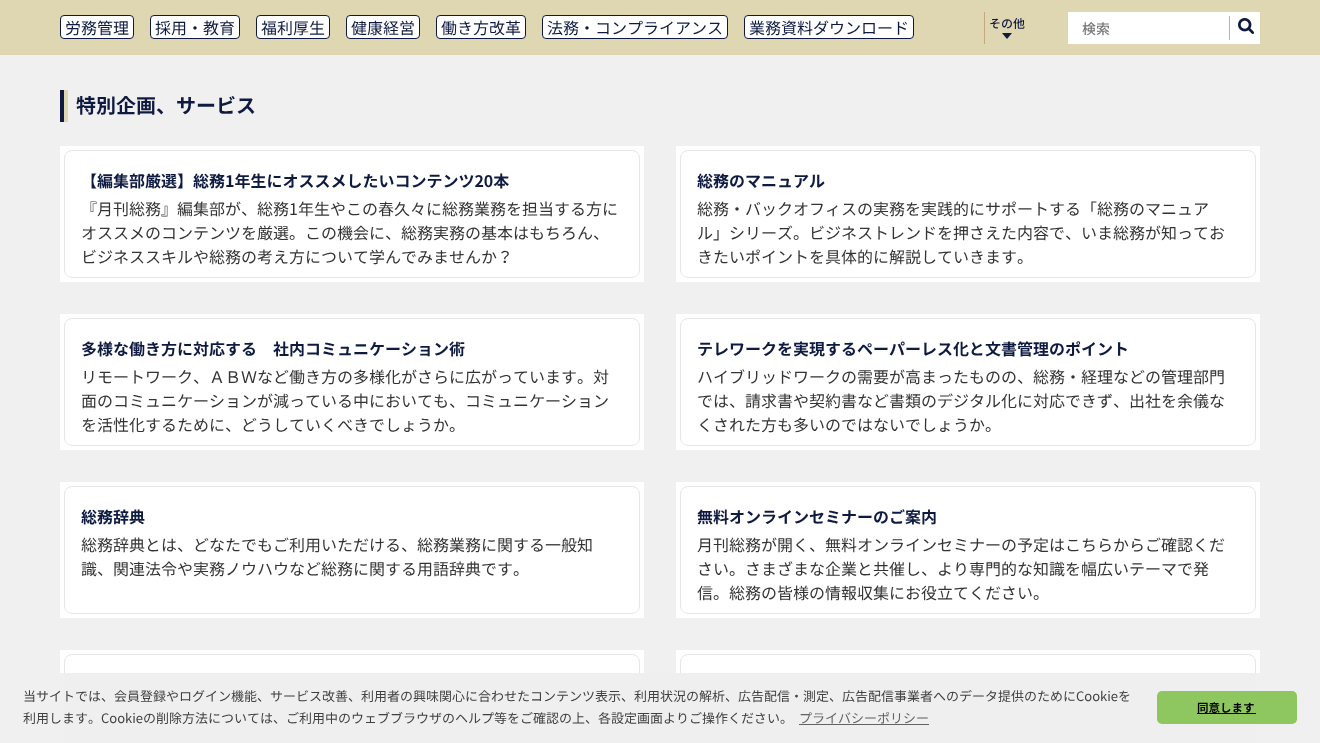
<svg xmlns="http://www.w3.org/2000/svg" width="1320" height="743">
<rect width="100%" height="100%" fill="#f0f0f0"/>
<rect width="1320" height="55" fill="#ded7b1"/>
<rect x="60.5" y="15.5" width="73" height="23" rx="3.5" fill="#fff" stroke="#0e1a40"/>
<text x="65" y="34" style="font-family:Noto Sans CJK JP;font-size:16px;fill:#0e1a40">労務管理</text>
<rect x="150.5" y="15.5" width="89" height="23" rx="3.5" fill="#fff" stroke="#0e1a40"/>
<text x="155" y="34" style="font-family:Noto Sans CJK JP;font-size:16px;fill:#0e1a40">採用・教育</text>
<rect x="256.5" y="15.5" width="73" height="23" rx="3.5" fill="#fff" stroke="#0e1a40"/>
<text x="261" y="34" style="font-family:Noto Sans CJK JP;font-size:16px;fill:#0e1a40">福利厚生</text>
<rect x="346.5" y="15.5" width="73" height="23" rx="3.5" fill="#fff" stroke="#0e1a40"/>
<text x="351" y="34" style="font-family:Noto Sans CJK JP;font-size:16px;fill:#0e1a40">健康経営</text>
<rect x="436.5" y="15.5" width="89" height="23" rx="3.5" fill="#fff" stroke="#0e1a40"/>
<text x="441" y="34" style="font-family:Noto Sans CJK JP;font-size:16px;fill:#0e1a40">働き方改革</text>
<rect x="542.5" y="15.5" width="185" height="23" rx="3.5" fill="#fff" stroke="#0e1a40"/>
<text x="547" y="34" style="font-family:Noto Sans CJK JP;font-size:16px;fill:#0e1a40">法務・コンプライアンス</text>
<rect x="744.5" y="15.5" width="169" height="23" rx="3.5" fill="#fff" stroke="#0e1a40"/>
<text x="749" y="34" style="font-family:Noto Sans CJK JP;font-size:16px;fill:#0e1a40">業務資料ダウンロード</text>
<rect x="984" y="12" width="1" height="32" fill="#c5a880"/>
<text x="989" y="28" style="font-family:Noto Sans CJK JP;font-size:12px;font-weight:500;fill:#0e1a40">その他</text>
<path d="M1002 33h10l-5 6z" fill="#0e1a40"/>
<rect x="1068" y="12" width="192" height="32" fill="#fff"/>
<text x="1082" y="34" style="font-family:Noto Sans CJK JP;font-size:14px;font-weight:500;fill:#757575">検索</text>
<rect x="1229" y="16" width="1" height="24" fill="#b3b3b3"/>
<image x="1238" y="18" width="16" height="16" href="media/1.png"/>
<rect x="60" y="90" width="4" height="32" fill="#0e1a40"/>
<rect x="64" y="90" width="4" height="32" fill="#ded7b1"/>
<text x="76" y="113" style="font-family:Noto Sans CJK JP;font-size:20px;font-weight:bold;fill:#0e1a40">特別企画、サービス</text>
<rect x="60" y="146" width="584" height="136" fill="#fff"/>
<rect x="64.5" y="150.5" width="575" height="127" rx="7.5" fill="none" stroke="#e6e6e6"/>
<text x="81" y="187" style="font-family:Noto Sans CJK JP;font-size:16px;font-weight:bold;fill:#0e1a40">【編集部厳選】総務1年生にオススメしたいコンテンツ20本</text>
<text x="81" y="215" style="font-family:Noto Sans CJK JP;font-size:16px;fill:#333">『月刊総務』編集部が、総務1年生やこの春久々に総務業務を担当する方に</text>
<text x="81" y="239" style="font-family:Noto Sans CJK JP;font-size:16px;fill:#333">オススメのコンテンツを厳選。この機会に、総務実務の基本はもちろん、</text>
<text x="81" y="263" style="font-family:Noto Sans CJK JP;font-size:16px;fill:#333">ビジネススキルや総務の考え方について学んでみませんか？</text>
<rect x="676" y="146" width="584" height="136" fill="#fff"/>
<rect x="680.5" y="150.5" width="575" height="127" rx="7.5" fill="none" stroke="#e6e6e6"/>
<text x="697" y="187" style="font-family:Noto Sans CJK JP;font-size:16px;font-weight:bold;fill:#0e1a40">総務のマニュアル</text>
<text x="697" y="215" style="font-family:Noto Sans CJK JP;font-size:16px;fill:#333">総務・バックオフィスの実務を実践的にサポートする「総務のマニュア</text>
<text x="697" y="239" style="font-family:Noto Sans CJK JP;font-size:16px;fill:#333">ル」シリーズ。ビジネストレンドを押さえた内容で、いま総務が知ってお</text>
<text x="697" y="263" style="font-family:Noto Sans CJK JP;font-size:16px;fill:#333">きたいポイントを具体的に解説していきます。</text>
<rect x="60" y="314" width="584" height="136" fill="#fff"/>
<rect x="64.5" y="318.5" width="575" height="127" rx="7.5" fill="none" stroke="#e6e6e6"/>
<text x="81" y="355" style="font-family:Noto Sans CJK JP;font-size:16px;font-weight:bold;fill:#0e1a40">多様な働き方に対応する　社内コミュニケーション術</text>
<text x="81" y="383" style="font-family:Noto Sans CJK JP;font-size:16px;fill:#333">リモートワーク、ＡＢＷなど働き方の多様化がさらに広がっています。対</text>
<text x="81" y="407" style="font-family:Noto Sans CJK JP;font-size:16px;fill:#333">面のコミュニケーションが減っている中においても、コミュニケーション</text>
<text x="81" y="431" style="font-family:Noto Sans CJK JP;font-size:16px;fill:#333">を活性化するために、どうしていくべきでしょうか。</text>
<rect x="676" y="314" width="584" height="136" fill="#fff"/>
<rect x="680.5" y="318.5" width="575" height="127" rx="7.5" fill="none" stroke="#e6e6e6"/>
<text x="697" y="355" style="font-family:Noto Sans CJK JP;font-size:16px;font-weight:bold;fill:#0e1a40">テレワークを実現するペーパーレス化と文書管理のポイント</text>
<text x="697" y="383" style="font-family:Noto Sans CJK JP;font-size:16px;fill:#333">ハイブリッドワークの需要が高まったものの、総務・経理などの管理部門</text>
<text x="697" y="407" style="font-family:Noto Sans CJK JP;font-size:16px;fill:#333">では、請求書や契約書など書類のデジタル化に対応できず、出社を余儀な</text>
<text x="697" y="431" style="font-family:Noto Sans CJK JP;font-size:16px;fill:#333">くされた方も多いのではないでしょうか。</text>
<rect x="60" y="482" width="584" height="136" fill="#fff"/>
<rect x="64.5" y="486.5" width="575" height="127" rx="7.5" fill="none" stroke="#e6e6e6"/>
<text x="81" y="523" style="font-family:Noto Sans CJK JP;font-size:16px;font-weight:bold;fill:#0e1a40">総務辞典</text>
<text x="81" y="551" style="font-family:Noto Sans CJK JP;font-size:16px;fill:#333">総務辞典とは、どなたでもご利用いただける、総務業務に関する一般知</text>
<text x="81" y="575" style="font-family:Noto Sans CJK JP;font-size:16px;fill:#333">識、関連法令や実務ノウハウなど総務に関する用語辞典です。</text>
<rect x="676" y="482" width="584" height="136" fill="#fff"/>
<rect x="680.5" y="486.5" width="575" height="127" rx="7.5" fill="none" stroke="#e6e6e6"/>
<text x="697" y="523" style="font-family:Noto Sans CJK JP;font-size:16px;font-weight:bold;fill:#0e1a40">無料オンラインセミナーのご案内</text>
<text x="697" y="551" style="font-family:Noto Sans CJK JP;font-size:16px;fill:#333">月刊総務が開く、無料オンラインセミナーの予定はこちらからご確認くだ</text>
<text x="697" y="575" style="font-family:Noto Sans CJK JP;font-size:16px;fill:#333">さい。さまざまな企業と共催し、より専門的な知識を幅広いテーマで発</text>
<text x="697" y="599" style="font-family:Noto Sans CJK JP;font-size:16px;fill:#333">信。総務の皆様の情報収集にお役立てください。</text>
<rect x="60" y="650" width="584" height="23" fill="#fff"/>
<rect x="64.5" y="654.5" width="575" height="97" rx="7.5" fill="none" stroke="#e6e6e6"/>
<rect x="676" y="650" width="584" height="23" fill="#fff"/>
<rect x="680.5" y="654.5" width="575" height="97" rx="7.5" fill="none" stroke="#e6e6e6"/>
<rect x="64" y="673" width="1192" height="70" fill="#efefef"/>
<text x="23" y="701" style="font-family:Noto Sans CJK JP;font-size:13px;fill:#404040">当サイトでは、会員登録やログイン機能、サービス改善、利用者の興味関心に合わせたコンテンツ表示、利用状況の解析、広告配信・測定、広告配信事業者へのデータ提供のためにCookieを</text>
<text x="23" y="723" style="font-family:Noto Sans CJK JP;font-size:13px;fill:#404040">利用します。Cookieの削除方法については、ご利用中のウェブブラウザのヘルプ等をご確認の上、各設定画面よりご操作ください。</text>
<text x="799" y="723" style="font-family:Noto Sans CJK JP;font-size:13px;fill:#636363">プライバシーポリシー</text>
<rect x="799" y="724" width="130" height="1" fill="#636363"/>
<rect x="1157" y="691" width="140" height="33" rx="5" fill="#8ec760"/>
<text x="1197" y="712" style="font-family:Noto Sans CJK JP;font-size:11.5px;font-weight:bold;fill:#000">同意します</text>
<rect x="1197" y="713" width="59" height="1" fill="#000"/>
</svg>
